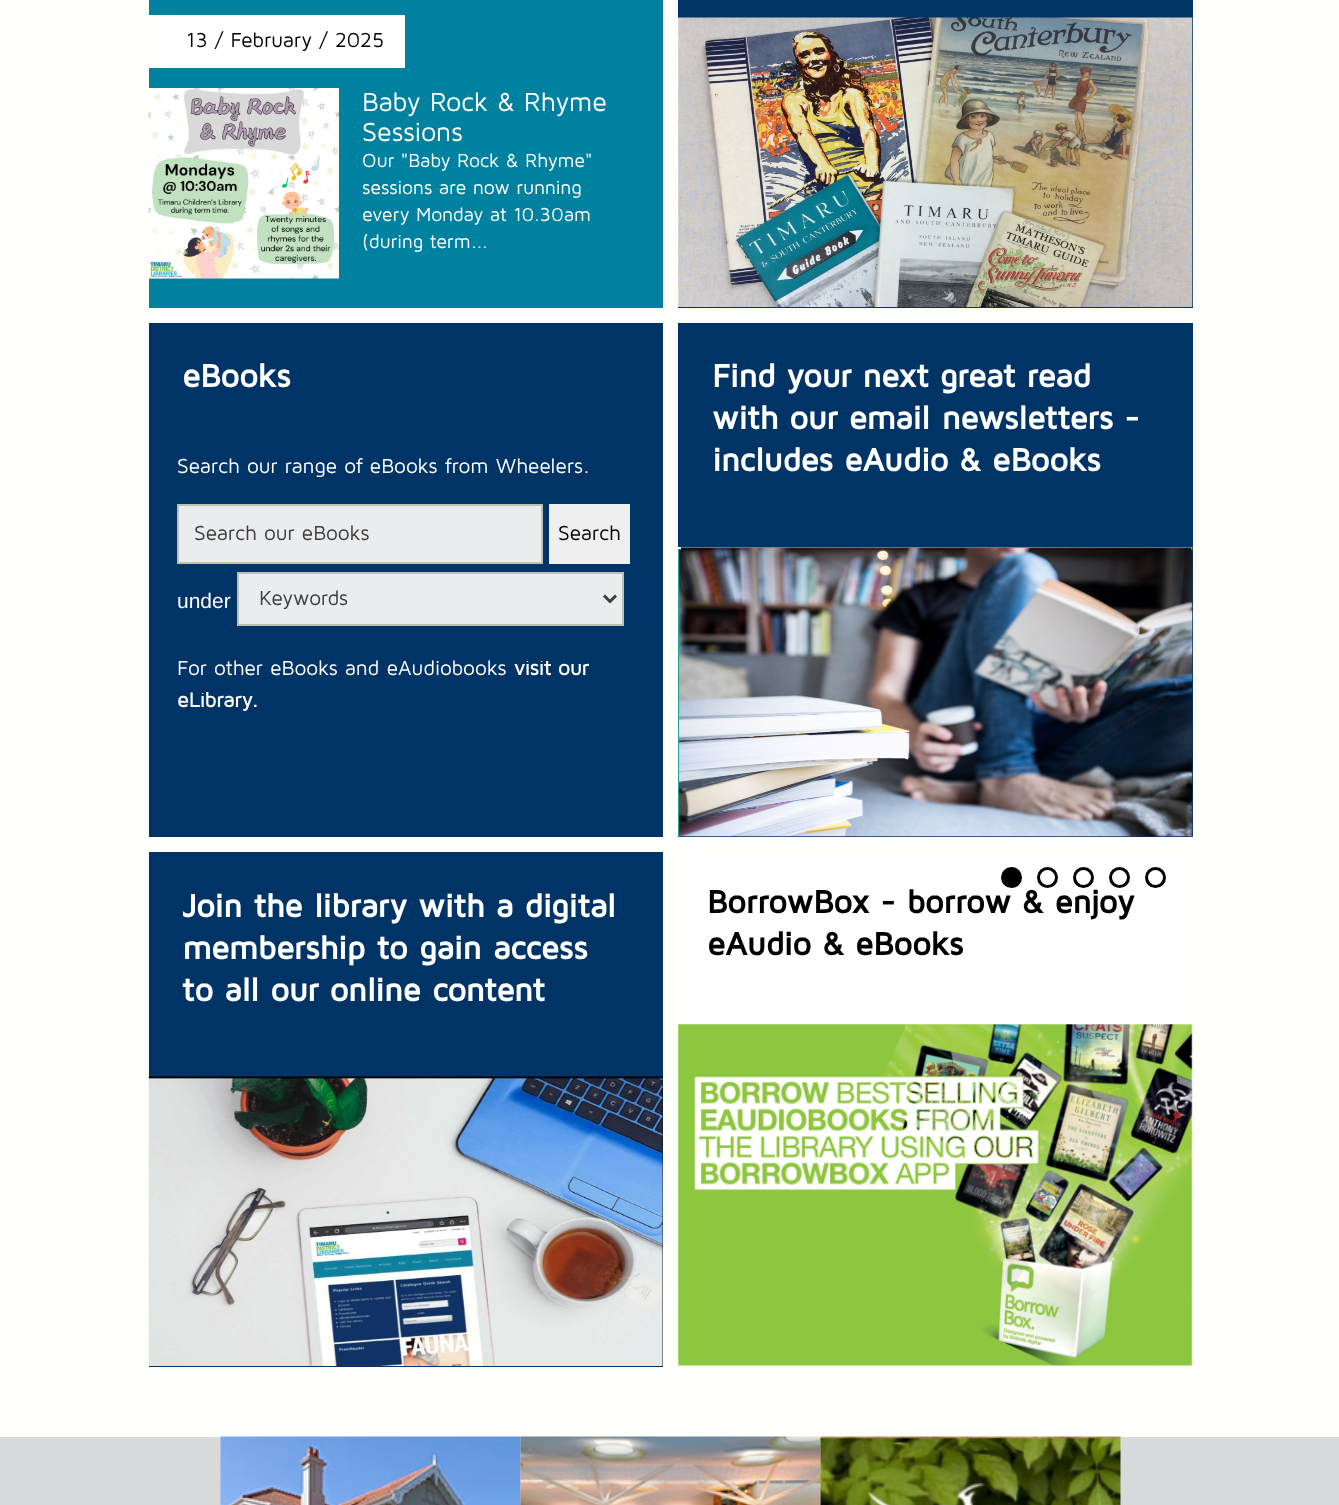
<svg xmlns="http://www.w3.org/2000/svg" width="1339" height="1505">
<rect width="100%" height="100%" fill="#fffffb"/>
<rect x="149" width="514" height="308" fill="#00819f"/>
<rect x="149" y="15" width="256" height="53" fill="#fff"/>
<text x="186" y="47" style="font-family:Maven Pro;font-size:21px;fill:#000">13 / February / 2025</text>
<image x="148" y="88" width="191" height="191" href="media/1.png"/>
<text x="362" y="111" style="font-family:Maven Pro;font-size:27px;fill:#fff">Baby Rock &amp; Rhyme</text>
<text x="362" y="141" style="font-family:Maven Pro;font-size:27px;fill:#fff">Sessions</text>
<text x="362" y="167" style="font-family:Maven Pro;font-size:19.5px;fill:#fff">Our "Baby Rock &amp; Rhyme"</text>
<text x="362" y="194" style="font-family:Maven Pro;font-size:19.5px;fill:#fff">sessions are now running</text>
<text x="362" y="221" style="font-family:Maven Pro;font-size:19.5px;fill:#fff">every Monday at 10.30am</text>
<text x="362" y="248" style="font-family:Maven Pro;font-size:19.5px;fill:#fff">(during term...</text>
<rect x="678" width="515" height="308" fill="#036"/>
<image x="678" y="17" width="515" height="290" href="media/2.png"/>
<rect x="149" y="323" width="514" height="514" fill="#036"/>
<text x="182" y="387" style="font-family:Maven Pro;font-size:33px;font-weight:bold;fill:#fff">eBooks</text>
<text x="177" y="473" style="font-family:Maven Pro;font-size:21px;fill:#fff">Search our range of eBooks from Wheelers.</text>
<rect x="178" y="505" width="364" height="58" fill="#ebecee" stroke="#bbc2b3" stroke-width="2"/>
<text x="194" y="540" style="font-family:Maven Pro;font-size:21px;fill:#3c3c3c">Search our eBooks</text>
<rect x="549" y="504" width="81" height="60" fill="#efefef"/>
<text x="558" y="540" style="font-family:Maven Pro;font-size:21px;fill:#000">Search</text>
<text x="177" y="608" style="font-family:Liberation Sans;font-size:21px;fill:#fff">under</text>
<rect x="238" y="573" width="385" height="52" fill="#ebecee" stroke="#bbc2b3" stroke-width="2"/>
<path d="M604 595.5l6 6l6-6" fill="none" stroke="#3c3c3c" stroke-width="3"/>
<text x="259" y="605" style="font-family:Maven Pro;font-size:21px;fill:#3c3c3c">Keywords</text>
<text x="177" y="675" style="font-family:Maven Pro;font-size:21px;fill:#fff">For other eBooks and eAudiobooks</text>
<text x="514" y="675" style="font-family:'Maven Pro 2';font-size:21px;font-weight:bold;fill:#fff">visit our</text>
<text x="177" y="707" style="font-family:'Maven Pro 2';font-size:21px;font-weight:bold;fill:#fff">eLibrary.</text>
<rect x="678" y="323" width="515" height="514" fill="#036"/>
<text x="712" y="387" style="font-family:Maven Pro;font-size:33px;font-weight:bold;fill:#fff">Find your next great read</text>
<text x="712" y="429" style="font-family:Maven Pro;font-size:33px;font-weight:bold;fill:#fff">with our email newsletters -</text>
<text x="712" y="471" style="font-family:Maven Pro;font-size:33px;font-weight:bold;fill:#fff">includes eAudio &amp; eBooks</text>
<image x="678" y="547" width="515" height="290" href="media/3.png"/>
<rect x="149" y="852" width="514" height="515" fill="#036"/>
<text x="182" y="917" style="font-family:Maven Pro;font-size:33px;font-weight:bold;fill:#fff">Join the library with a digital</text>
<text x="182" y="959" style="font-family:Maven Pro;font-size:33px;font-weight:bold;fill:#fff">membership to gain access</text>
<text x="182" y="1001" style="font-family:Maven Pro;font-size:33px;font-weight:bold;fill:#fff">to all our online content</text>
<image x="148" y="1076" width="515" height="290" href="media/4.png"/>
<rect x="678" y="852" width="515" height="515" fill="#fff"/>
<circle cx="1011.5" cy="877.5" r="9" fill="#000" stroke="#000" stroke-width="3"/>
<circle cx="1047.5" cy="877.5" r="9" fill="none" stroke="#000" stroke-width="3"/>
<circle cx="1083.5" cy="877.5" r="9" fill="none" stroke="#000" stroke-width="3"/>
<circle cx="1119.5" cy="877.5" r="9" fill="none" stroke="#000" stroke-width="3"/>
<circle cx="1155.5" cy="877.5" r="9" fill="none" stroke="#000" stroke-width="3"/>
<text x="707" y="913" style="font-family:Maven Pro;font-size:33px;font-weight:bold;fill:#000">BorrowBox - borrow &amp; enjoy</text>
<text x="707" y="955" style="font-family:Maven Pro;font-size:33px;font-weight:bold;fill:#000">eAudio &amp; eBooks</text>
<image x="678" y="1024" width="515" height="342" href="media/5.png"/>
<rect y="1437" width="1339" height="68" fill="#d8d9db"/>
<image x="220" y="1436" width="301" height="69" href="media/6.png"/>
<image x="520" y="1436" width="301" height="69" href="media/7.png"/>
<image x="820" y="1436" width="301" height="69" href="media/8.png"/>
</svg>
